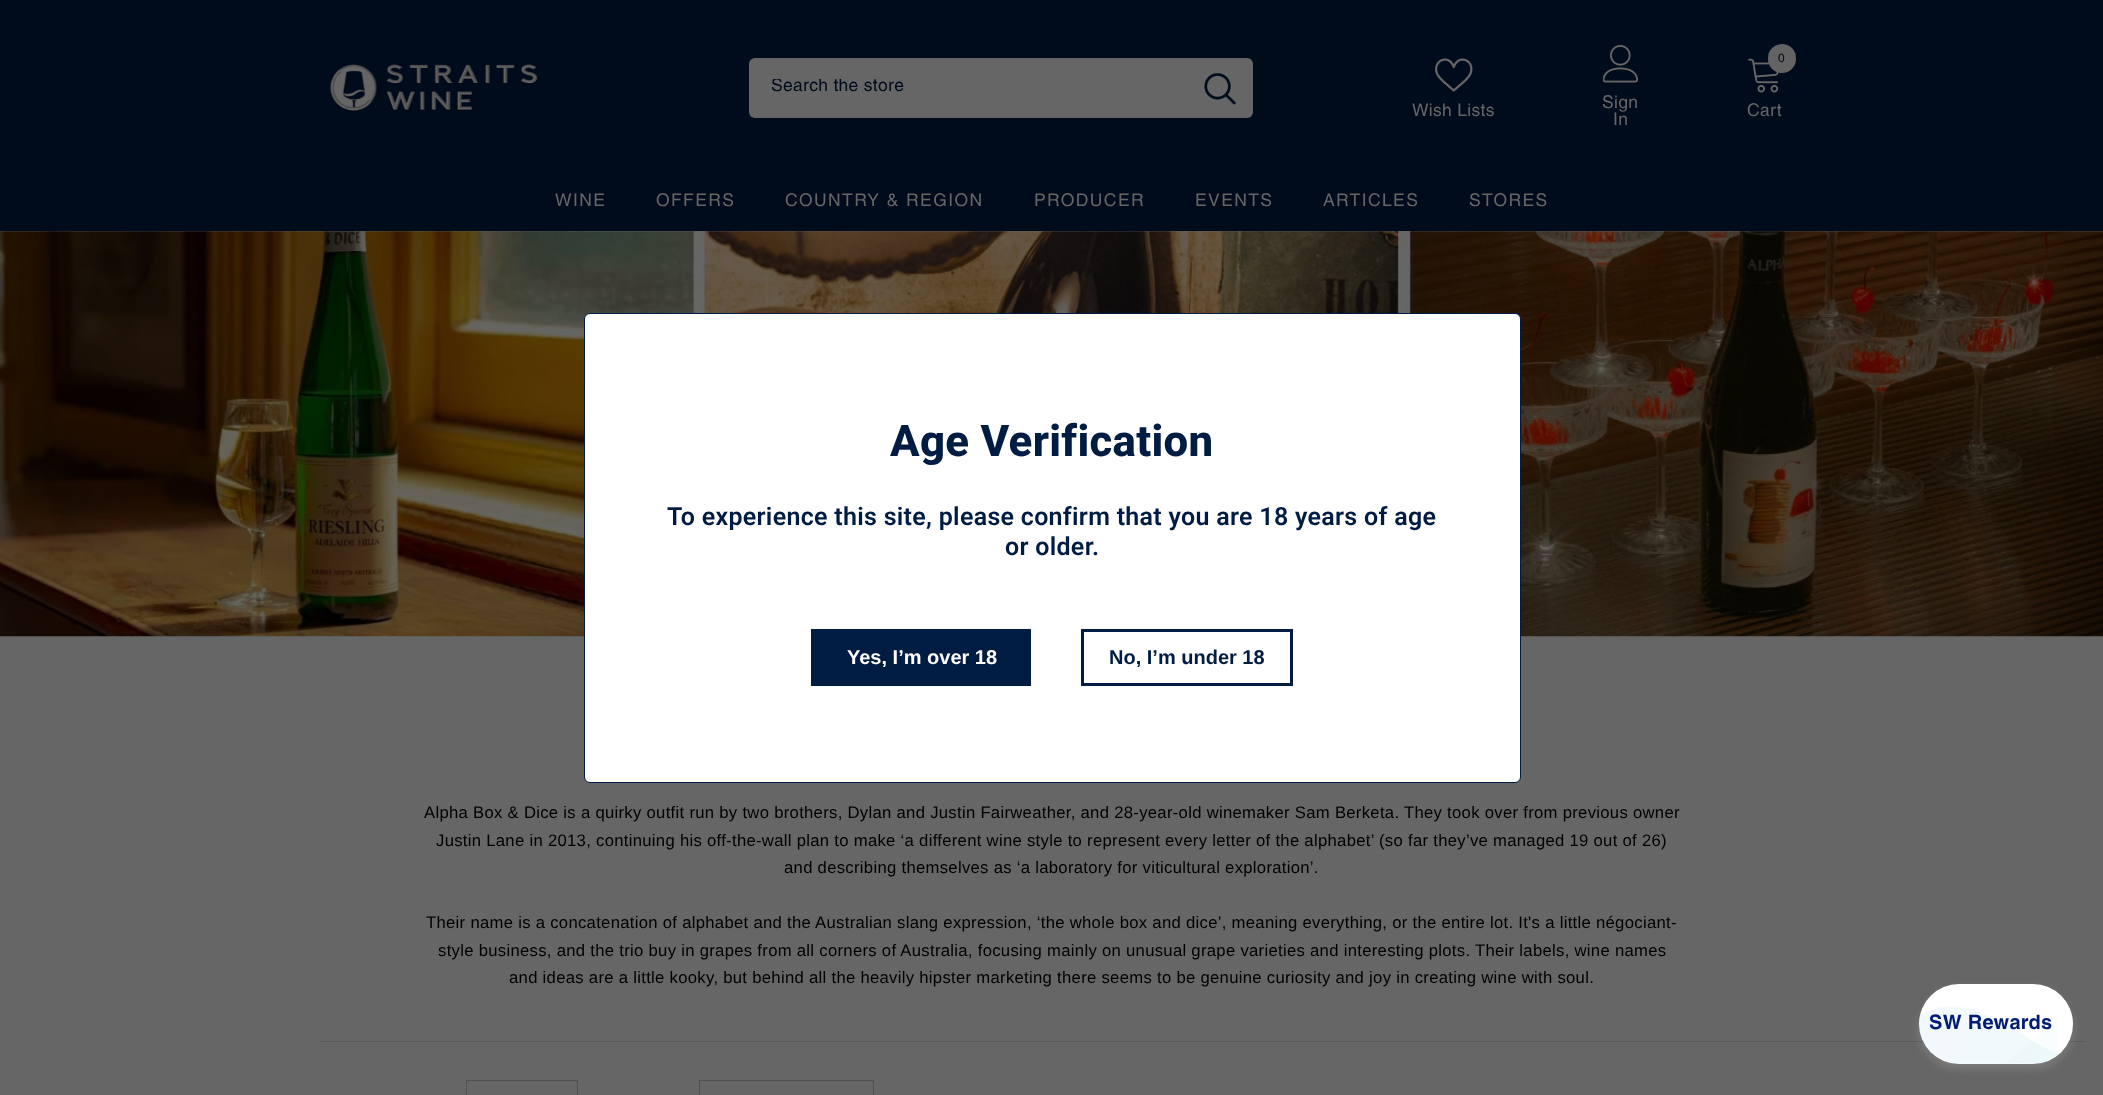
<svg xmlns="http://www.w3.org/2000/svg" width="2103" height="1095">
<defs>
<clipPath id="clip1"><rect x="771" y="79" width="394" height="17"/></clipPath>
</defs>
<rect width="100%" height="100%" fill="#666"/>
<rect width="2103" height="231" fill="#000b1b"/>
<image x="329" y="62" width="209" height="53" href="media/1.png"/>
<rect x="749" y="58" width="504" height="60" rx="6" fill="#666"/>
<g clip-path="url(#clip1)">
<text x="771" y="91" style="font-family:Helvetica;font-size:17.5px;letter-spacing:0.3px;fill:#000b1b">Search the store</text>
</g>
<image x="1204" y="73" width="32" height="32" href="media/2.png"/>
<image x="1748" y="58" width="31" height="35" href="media/3.png"/>
<rect x="1768" y="44" width="28" height="29" rx="14" fill="#636363"/>
<text x="1778" y="62" style="font-family:Helvetica;font-size:12px;fill:#000b1b">0</text>
<text x="1747" y="116" style="font-family:Helvetica;font-size:17.5px;letter-spacing:0.3px;fill:#666">Cart</text>
<image x="1435" y="58" width="38" height="34" href="media/4.png"/>
<text x="1412" y="116" style="font-family:Helvetica;font-size:17.5px;letter-spacing:0.3px;fill:#666">Wish Lists</text>
<image x="1603" y="45" width="36" height="38" href="media/5.png"/>
<text x="1602" y="108" style="font-family:Helvetica;font-size:17.5px;letter-spacing:0.3px;fill:#666">Sign</text>
<text x="1613" y="125" style="font-family:Helvetica;font-size:17.5px;letter-spacing:0.3px;fill:#666">In</text>
<text x="555" y="206" style="font-family:Helvetica;font-size:17.5px;letter-spacing:1.4px;fill:#666">WINE</text>
<text x="656" y="206" style="font-family:Helvetica;font-size:17.5px;letter-spacing:1.4px;fill:#666">OFFERS</text>
<text x="785" y="206" style="font-family:Helvetica;font-size:17.5px;letter-spacing:1.4px;fill:#666">COUNTRY &amp; REGION</text>
<text x="1034" y="206" style="font-family:Helvetica;font-size:17.5px;letter-spacing:1.4px;fill:#666">PRODUCER</text>
<text x="1195" y="206" style="font-family:Helvetica;font-size:17.5px;letter-spacing:1.4px;fill:#666">EVENTS</text>
<text x="1323" y="206" style="font-family:Helvetica;font-size:17.5px;letter-spacing:1.4px;fill:#666">ARTICLES</text>
<text x="1469" y="206" style="font-family:Helvetica;font-size:17.5px;letter-spacing:1.4px;fill:#666">STORES</text>
<image x="0" y="231" width="2103" height="406" href="media/6.png"/>
<text x="424" y="818" style="font-family:Liberation Sans;font-size:16.67px;letter-spacing:0.3px;fill:#000">Alpha Box &amp; Dice is a quirky outfit run by two brothers, Dylan and Justin Fairweather, and 28-year-old winemaker Sam Berketa. They took over from previous owner</text>
<text x="436" y="846" style="font-family:Liberation Sans;font-size:16.67px;letter-spacing:0.3px;fill:#000">Justin Lane in 2013, continuing his off-the-wall plan to make ‘a different wine style to represent every letter of the alphabet’ (so far they’ve managed 19 out of 26)</text>
<text x="784" y="873" style="font-family:Liberation Sans;font-size:16.67px;letter-spacing:0.3px;fill:#000">and describing themselves as ‘a laboratory for viticultural exploration’.</text>
<text x="426" y="928" style="font-family:Liberation Sans;font-size:16.67px;letter-spacing:0.3px;fill:#000">Their name is a concatenation of alphabet and the Australian slang expression, ‘the whole box and dice’, meaning everything, or the entire lot. It's a little négociant-</text>
<text x="438" y="956" style="font-family:Liberation Sans;font-size:16.67px;letter-spacing:0.3px;fill:#000">style business, and the trio buy in grapes from all corners of Australia, focusing mainly on unusual grape varieties and interesting plots. Their labels, wine names</text>
<text x="509" y="983" style="font-family:Liberation Sans;font-size:16.67px;letter-spacing:0.3px;fill:#000">and ideas are a little kooky, but behind all the heavily hipster marketing there seems to be genuine curiosity and joy in creating wine with soul.</text>
<rect x="319" y="1041" width="1766" height="1" fill="#595959"/>
<rect x="466.5" y="1080.5" width="111" height="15" fill="none" stroke="#505050"/>
<rect x="699.5" y="1080.5" width="174" height="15" fill="none" stroke="#505050"/>
<rect x="584.5" y="313.5" width="936" height="469" rx="5.5" fill="#fff" stroke="#001c43"/>
<text x="890" y="456" style="font-family:Roboto;font-size:43.75px;font-weight:800;letter-spacing:0.3px;fill:#001c43">Age Verification</text>
<text x="667" y="525" style="font-family:Roboto;font-size:25px;font-weight:600;letter-spacing:0.3px;fill:#001c43">To experience this site, please confirm that you are 18 years of age</text>
<text x="1005" y="555" style="font-family:Roboto;font-size:25px;font-weight:600;letter-spacing:0.3px;fill:#001c43">or older.</text>
<rect x="811" y="629" width="220" height="57" fill="#001c43"/>
<text x="847" y="664" style="font-family:Liberation Sans;font-size:20px;font-weight:bold;fill:#fff">Yes, I’m over 18</text>
<rect x="1082.5" y="630.5" width="209" height="54" fill="none" stroke="#001c43" stroke-width="3"/>
<text x="1109" y="664" style="font-family:Liberation Sans;font-size:20px;font-weight:bold;fill:#001c43">No, I’m under 18</text>
<rect x="1919" y="989" width="154" height="80" rx="40" fill="#bfbfbf40" filter="blur(5px)"/>
<rect x="1919" y="984" width="154" height="80" rx="40" fill="#fff"/>
<image x="1919" y="1006" width="139" height="58" href="media/7.png"/>
<text x="1929" y="1029" style="font-family:Helvetica;font-size:20px;font-weight:bold;letter-spacing:0.3px;fill:#001d75">SW Rewards</text>
</svg>
